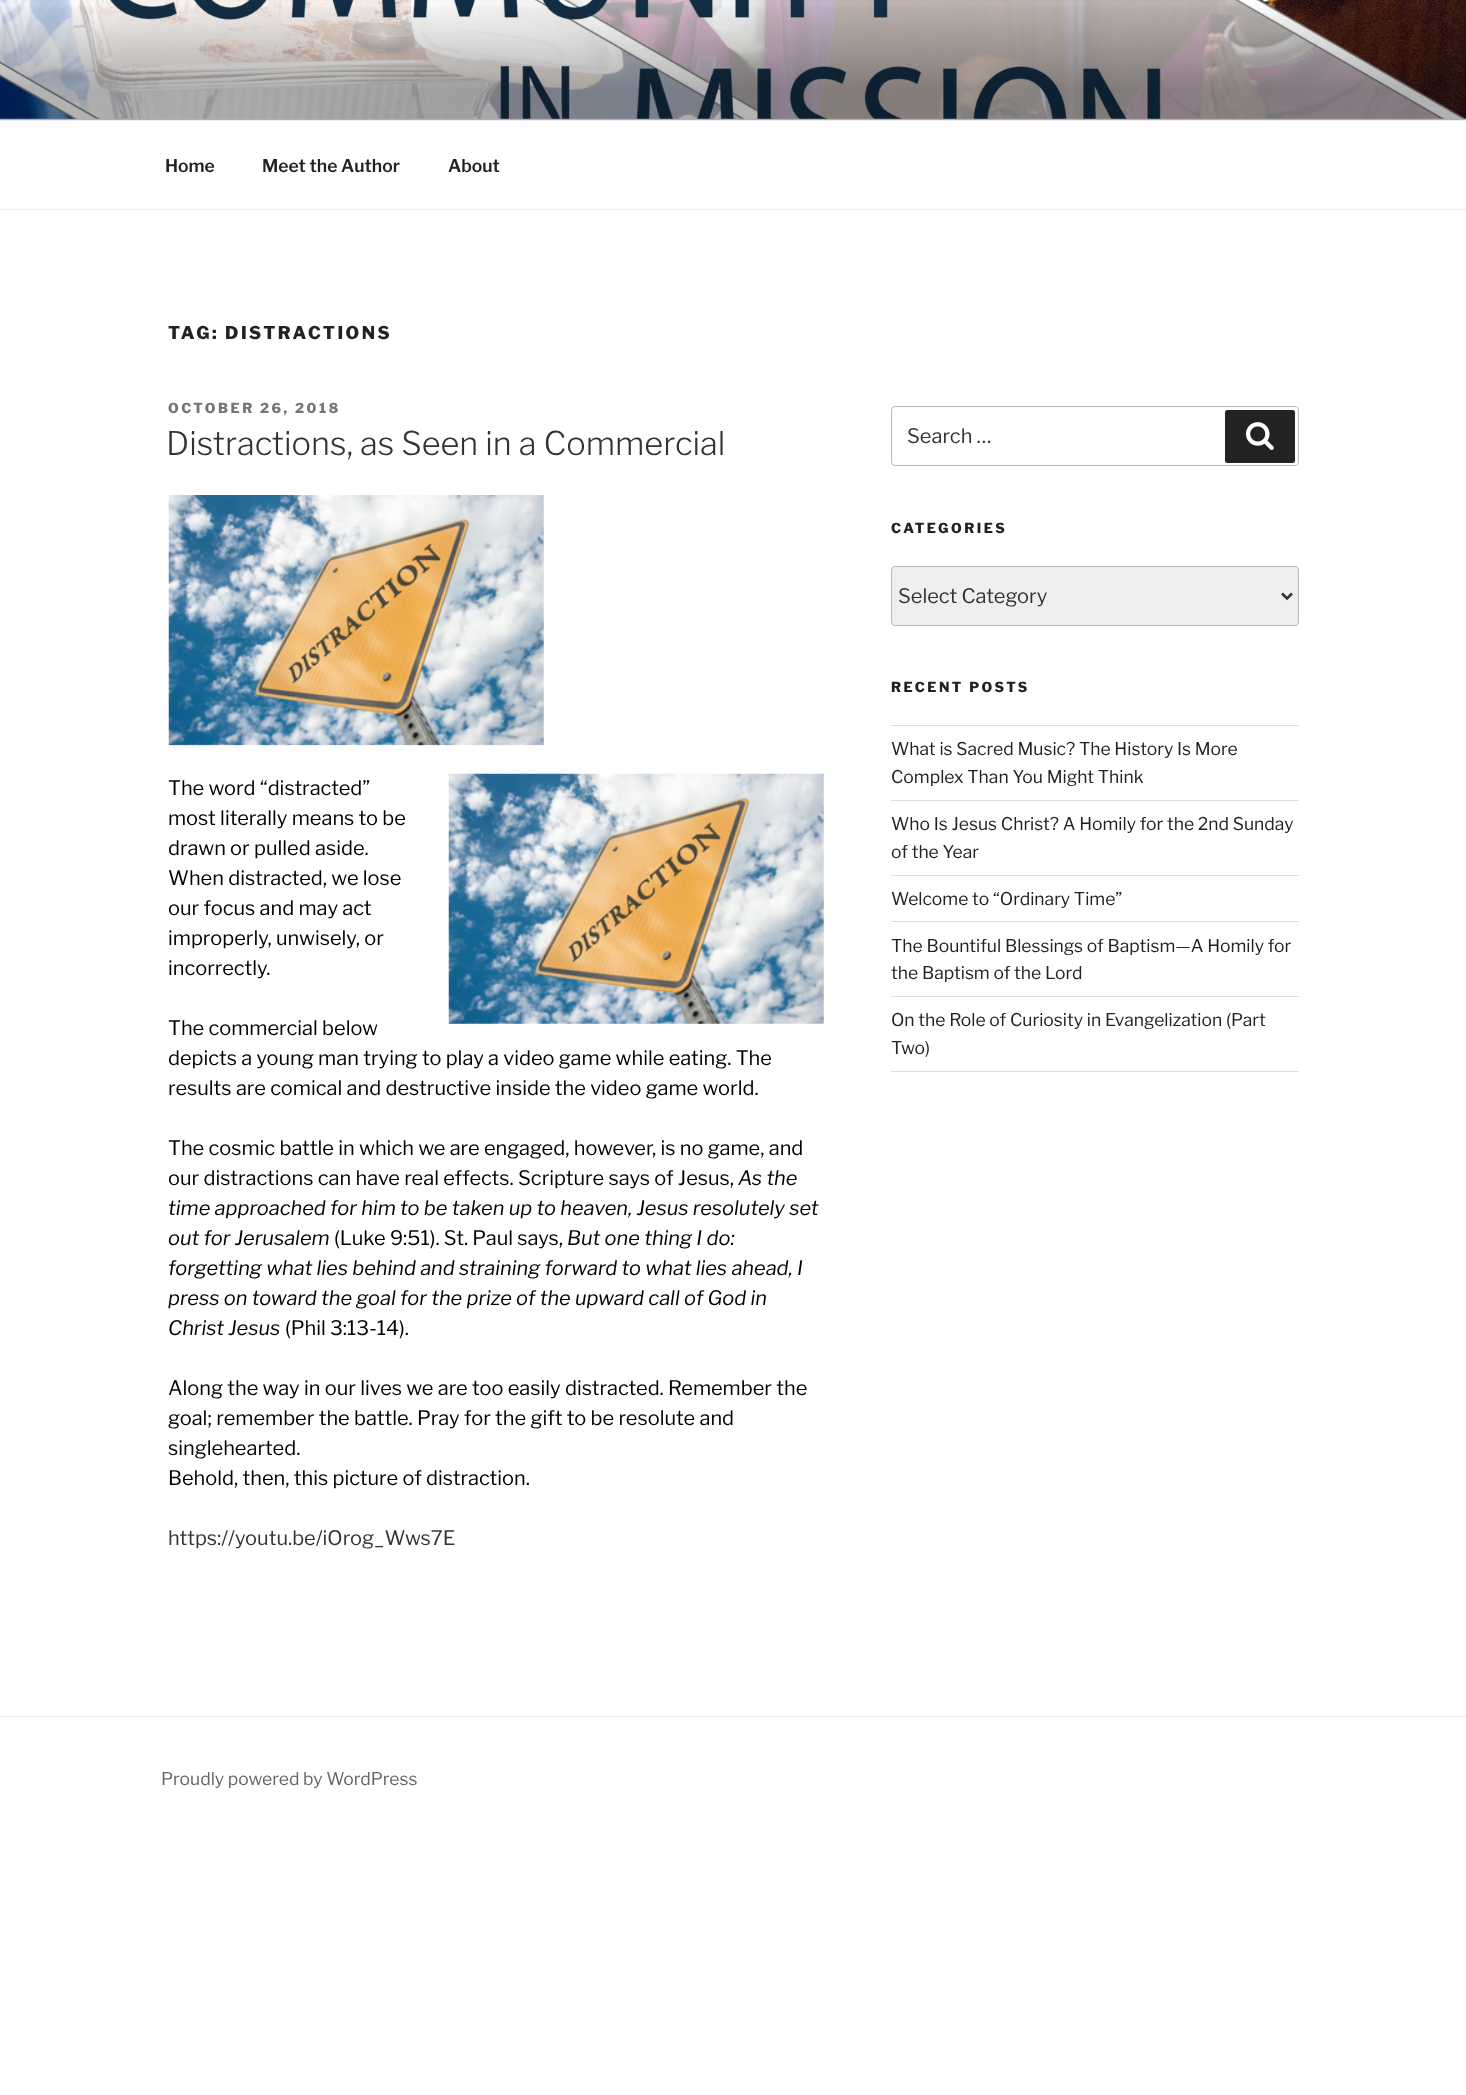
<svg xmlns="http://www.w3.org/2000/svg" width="1466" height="2095">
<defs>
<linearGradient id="g1" gradientUnits="userSpaceOnUse" x1="733" y1="0" x2="733" y2="120"><stop offset="0" stop-color="#000" stop-opacity="0"/><stop offset="0.75" stop-color="#000" stop-opacity="0.3"/><stop offset="1" stop-color="#000" stop-opacity="0.3"/></linearGradient>
</defs>
<rect width="100%" height="100%" fill="#fff"/>
<rect y="118" width="1466" height="2" fill="#fafafa"/>
<image x="0" y="0" width="1466" height="119" href="media/1.png"/>
<rect y="6" width="1466" height="114" fill="url(#g1)"/>
<rect y="120" width="1466" height="1" fill="#eee"/>
<rect y="209" width="1466" height="1" fill="#eee"/>
<text x="165" y="172" style="font-family:'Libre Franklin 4';font-size:17.5px;font-weight:100;fill:#222">Home</text>
<text x="262" y="172" style="font-family:'Libre Franklin 4';font-size:17.5px;font-weight:100;fill:#222">Meet the Author</text>
<text x="448" y="172" style="font-family:'Libre Franklin 4';font-size:17.5px;font-weight:100;fill:#222">About</text>
<text x="168" y="339" style="font-family:Libre Franklin;font-size:17.5px;font-weight:100;letter-spacing:2.5px;fill:#222">TAG: DISTRACTIONS</text>
<text x="168" y="413" style="font-family:Libre Franklin;font-size:13.75px;font-weight:100;letter-spacing:2.5px;fill:#767676">OCTOBER 26, 2018</text>
<text x="166" y="455" style="font-family:'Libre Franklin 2';font-size:32.5px;font-weight:100;fill:#333">Distractions, as Seen in a Commercial</text>
<image x="168" y="495" width="376" height="251" href="media/2.png"/>
<text x="168" y="795" style="font-family:'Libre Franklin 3';font-size:20px;font-weight:100;fill:#000">The word “distracted”</text>
<image x="448" y="773" width="376" height="251" href="media/3.png"/>
<text x="168" y="825" style="font-family:'Libre Franklin 3';font-size:20px;font-weight:100;fill:#000">most literally means to be</text>
<text x="168" y="855" style="font-family:'Libre Franklin 3';font-size:20px;font-weight:100;fill:#000">drawn or pulled aside.</text>
<text x="168" y="885" style="font-family:'Libre Franklin 3';font-size:20px;font-weight:100;fill:#000">When distracted, we lose</text>
<text x="168" y="915" style="font-family:'Libre Franklin 3';font-size:20px;font-weight:100;fill:#000">our focus and may act</text>
<text x="168" y="945" style="font-family:'Libre Franklin 3';font-size:20px;font-weight:100;fill:#000">improperly, unwisely, or</text>
<text x="168" y="975" style="font-family:'Libre Franklin 3';font-size:20px;font-weight:100;fill:#000">incorrectly.</text>
<text x="168" y="1035" style="font-family:'Libre Franklin 3';font-size:20px;font-weight:100;fill:#000">The commercial below</text>
<text x="168" y="1065" style="font-family:'Libre Franklin 3';font-size:20px;font-weight:100;fill:#000">depicts a young man trying to play a video game while eating. The</text>
<text x="168" y="1095" style="font-family:'Libre Franklin 3';font-size:20px;font-weight:100;fill:#000">results are comical and destructive inside the video game world.</text>
<text x="168" y="1155" style="font-family:'Libre Franklin 3';font-size:20px;font-weight:100;fill:#000">The cosmic battle in which we are engaged, however, is no game, and</text>
<text x="168" y="1185" style="font-family:'Libre Franklin 3';font-size:20px;font-weight:100;fill:#000">our distractions can have real effects. Scripture says of Jesus,</text>
<text x="738" y="1185" style="font-family:Libre Franklin;font-size:20px;font-weight:100;font-style:italic;fill:#000">As the</text>
<text x="168" y="1215" style="font-family:Libre Franklin;font-size:20px;font-weight:100;font-style:italic;fill:#000">time approached for him to be taken up to heaven, Jesus resolutely set</text>
<text x="168" y="1245" style="font-family:Libre Franklin;font-size:20px;font-weight:100;font-style:italic;fill:#000">out for Jerusalem</text>
<text x="334" y="1245" style="font-family:'Libre Franklin 3';font-size:20px;font-weight:100;fill:#000">(Luke 9:51). St. Paul says,</text>
<text x="567" y="1245" style="font-family:Libre Franklin;font-size:20px;font-weight:100;font-style:italic;fill:#000">But one thing I do:</text>
<text x="168" y="1275" style="font-family:Libre Franklin;font-size:20px;font-weight:100;font-style:italic;fill:#000">forgetting what lies behind and straining forward to what lies ahead, I</text>
<text x="168" y="1305" style="font-family:Libre Franklin;font-size:20px;font-weight:100;font-style:italic;fill:#000">press on toward the goal for the prize of the upward call of God in</text>
<text x="168" y="1335" style="font-family:Libre Franklin;font-size:20px;font-weight:100;font-style:italic;fill:#000">Christ Jesus</text>
<text x="285" y="1335" style="font-family:'Libre Franklin 3';font-size:20px;font-weight:100;fill:#000">(Phil 3:13-14).</text>
<text x="168" y="1395" style="font-family:'Libre Franklin 3';font-size:20px;font-weight:100;fill:#000">Along the way in our lives we are too easily distracted. Remember the</text>
<text x="168" y="1425" style="font-family:'Libre Franklin 3';font-size:20px;font-weight:100;fill:#000">goal; remember the battle. Pray for the gift to be resolute and</text>
<text x="168" y="1455" style="font-family:'Libre Franklin 3';font-size:20px;font-weight:100;fill:#000">singlehearted.</text>
<text x="168" y="1485" style="font-family:'Libre Franklin 3';font-size:20px;font-weight:100;fill:#000">Behold, then, this picture of distraction.</text>
<text x="168" y="1545" style="font-family:'Libre Franklin 3';font-size:20px;font-weight:100;fill:#333">https://youtu.be/iOrog_Wws7E</text>
<rect x="891.5" y="406.5" width="407" height="59" rx="3.5" fill="none" stroke="#bbb"/>
<text x="907" y="443" style="font-family:'Libre Franklin 3';font-size:20px;font-weight:100;fill:#333">Search …</text>
<rect x="1225" y="410" width="70" height="53" rx="2.5" fill="#222"/>
<image x="1245" y="422" width="29" height="28" href="media/4.png"/>
<text x="891" y="533" style="font-family:Libre Franklin;font-size:13.75px;font-weight:100;letter-spacing:2.5px;fill:#222">CATEGORIES</text>
<rect x="891.5" y="566.5" width="407" height="59" rx="3.5" fill="#efefef" stroke="#bbb"/>
<path d="M1282 593.5l5 5l5-5" fill="none" stroke="#333" stroke-width="2.5"/>
<text x="898" y="603" style="font-family:'Libre Franklin 3';font-size:20px;font-weight:100;fill:#333">Select Category</text>
<text x="891" y="692" style="font-family:Libre Franklin;font-size:13.75px;font-weight:100;letter-spacing:2.5px;fill:#222">RECENT POSTS</text>
<rect x="891" y="725" width="408" height="1" fill="#ddd"/>
<rect x="891" y="800" width="408" height="1" fill="#ddd"/>
<text x="891" y="755" style="font-family:'Libre Franklin 3';font-size:17.5px;font-weight:100;fill:#222">What is Sacred Music? The History Is More</text>
<text x="891" y="783" style="font-family:'Libre Franklin 3';font-size:17.5px;font-weight:100;fill:#222">Complex Than You Might Think</text>
<rect x="891" y="875" width="408" height="1" fill="#ddd"/>
<text x="891" y="830" style="font-family:'Libre Franklin 3';font-size:17.5px;font-weight:100;fill:#222">Who Is Jesus Christ? A Homily for the 2nd Sunday</text>
<text x="891" y="858" style="font-family:'Libre Franklin 3';font-size:17.5px;font-weight:100;fill:#222">of the Year</text>
<rect x="891" y="921" width="408" height="1" fill="#ddd"/>
<text x="891" y="905" style="font-family:'Libre Franklin 3';font-size:17.5px;font-weight:100;fill:#222">Welcome to “Ordinary Time”</text>
<rect x="891" y="996" width="408" height="1" fill="#ddd"/>
<text x="891" y="952" style="font-family:'Libre Franklin 3';font-size:17.5px;font-weight:100;fill:#222">The Bountiful Blessings of Baptism—A Homily for</text>
<text x="891" y="979" style="font-family:'Libre Franklin 3';font-size:17.5px;font-weight:100;fill:#222">the Baptism of the Lord</text>
<rect x="891" y="1071" width="408" height="1" fill="#ddd"/>
<text x="891" y="1026" style="font-family:'Libre Franklin 3';font-size:17.5px;font-weight:100;fill:#222">On the Role of Curiosity in Evangelization (Part</text>
<text x="891" y="1054" style="font-family:'Libre Franklin 3';font-size:17.5px;font-weight:100;fill:#222">Two)</text>
<rect y="1716" width="1466" height="1" fill="#eee"/>
<text x="161" y="1785" style="font-family:'Libre Franklin 3';font-size:17.5px;font-weight:100;fill:#666">Proudly powered by WordPress</text>
</svg>
